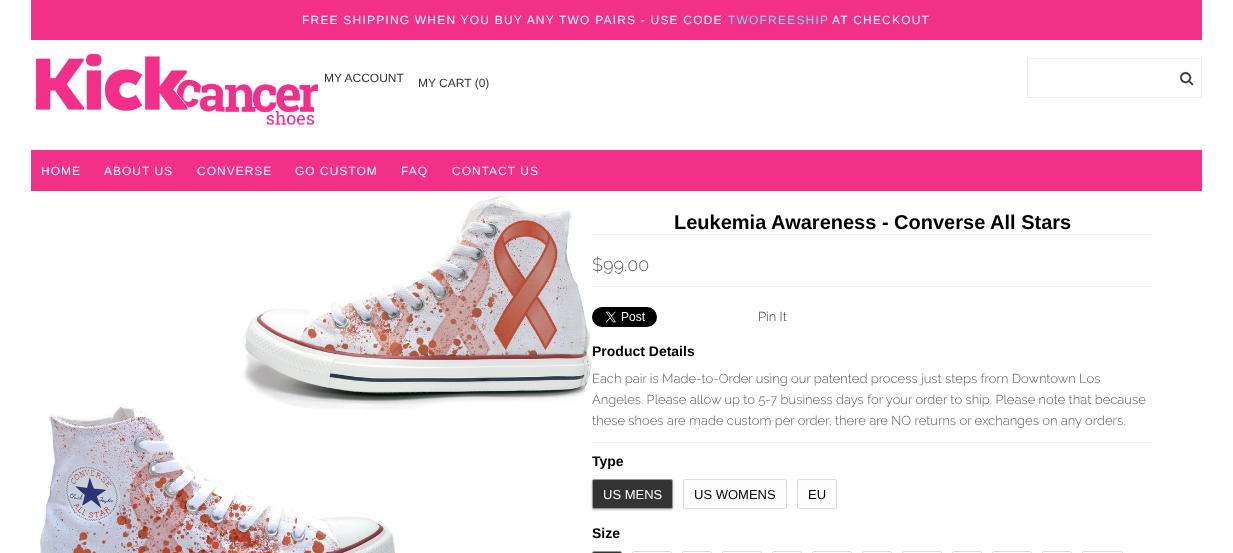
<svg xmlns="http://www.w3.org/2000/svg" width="1233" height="553">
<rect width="100%" height="100%" fill="#fff"/>
<rect x="31" width="1171" height="40" fill="#f23089"/>
<text x="302" y="24" style="font-family:Liberation Sans;font-size:12px;letter-spacing:1.2px;fill:#fff">FREE SHIPPING WHEN YOU BUY ANY TWO PAIRS - USE CODE</text>
<text x="728" y="24" style="font-family:Liberation Sans;font-size:12px;letter-spacing:1.2px;fill:#79d7f8">TWOFREESHIP</text>
<text x="832" y="24" style="font-family:Liberation Sans;font-size:12px;letter-spacing:1.2px;fill:#fff">AT CHECKOUT</text>
<image x="35" y="53" width="284" height="72" href="media/1.png"/>
<text x="324" y="82" style="font-family:Liberation Sans;font-size:12px;fill:#333">MY ACCOUNT</text>
<text x="418" y="87" style="font-family:Liberation Sans;font-size:12px;fill:#333">MY CART (0)</text>
<rect x="1027.5" y="58.5" width="174" height="39" fill="none" stroke="#eee"/>
<image x="1179" y="71" width="15" height="15" href="media/2.png"/>
<rect x="31" y="150" width="1171" height="41" fill="#f23089"/>
<text x="41" y="175" style="font-family:Liberation Sans;font-size:12px;letter-spacing:1px;fill:#fff">HOME</text>
<text x="104" y="175" style="font-family:Liberation Sans;font-size:12px;letter-spacing:1px;fill:#fff">ABOUT US</text>
<text x="197" y="175" style="font-family:Liberation Sans;font-size:12px;letter-spacing:1px;fill:#fff">CONVERSE</text>
<text x="295" y="175" style="font-family:Liberation Sans;font-size:12px;letter-spacing:1px;fill:#fff">GO CUSTOM</text>
<text x="401" y="175" style="font-family:Liberation Sans;font-size:12px;letter-spacing:1px;fill:#fff">FAQ</text>
<text x="452" y="175" style="font-family:Liberation Sans;font-size:12px;letter-spacing:1px;fill:#fff">CONTACT US</text>
<image x="40" y="195" width="552" height="358" href="media/3.png"/>
<rect x="592" y="234" width="561" height="1" fill="#eee"/>
<text x="674" y="229" style="font-family:Liberation Sans;font-size:20px;font-weight:bold;fill:#000">Leukemia Awareness - Converse All Stars</text>
<text x="592" y="271" style="font-family:Raleway;font-size:18px;font-weight:300;fill:#5a5a5a">$99.00</text>
<rect x="592" y="286" width="561" height="1" fill="#eee"/>
<rect x="592" y="442" width="561" height="1" fill="#eee"/>
<image x="592" y="307" width="65" height="20" href="media/4.png"/>
<text x="758" y="321" style="font-family:Raleway;font-size:13px;font-weight:300;fill:#333">Pin It</text>
<text x="592" y="356" style="font-family:Liberation Sans;font-size:14px;font-weight:bold;fill:#000">Product Details</text>
<text x="592" y="383" style="font-family:Raleway;font-size:13px;font-weight:300;fill:#5a5a5a">Each pair is Made-to-Order using our patented process just steps from Downtown Los</text>
<text x="592" y="404" style="font-family:Raleway;font-size:13px;font-weight:300;fill:#5a5a5a">Angeles. Please allow up to 5-7 business days for your order to ship. Please note that because</text>
<text x="592" y="425" style="font-family:Raleway;font-size:13px;font-weight:300;fill:#5a5a5a">these shoes are made custom per order, there are NO returns or exchanges on any orders.</text>
<text x="592" y="466" style="font-family:Liberation Sans;font-size:14px;font-weight:bold;fill:#000">Type</text>
<rect x="592" y="480" width="81" height="30" rx="2" fill="#00000040" filter="blur(1px)"/>
<rect x="592.5" y="479.5" width="80" height="29" rx="1.5" fill="#333" stroke="#999"/>
<text x="603" y="499" style="font-family:Liberation Sans;font-size:13px;fill:#fff">US MENS</text>
<rect x="683.5" y="479.5" width="103" height="29" rx="1.5" fill="#fcfcfc" stroke="#ddd"/>
<text x="694" y="499" style="font-family:Liberation Sans;font-size:13px;fill:#000">US WOMENS</text>
<rect x="797.5" y="479.5" width="39" height="29" rx="1.5" fill="#fcfcfc" stroke="#ddd"/>
<text x="808" y="499" style="font-family:Liberation Sans;font-size:13px;fill:#000">EU</text>
<text x="592" y="538" style="font-family:Liberation Sans;font-size:14px;font-weight:bold;fill:#000">Size</text>
<rect x="592" y="552" width="30" height="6" rx="2" fill="#00000040" filter="blur(1px)"/>
<rect x="592.5" y="551.5" width="29" height="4" rx="1.5" fill="#333" stroke="#999"/>
<rect x="632.5" y="551.5" width="39" height="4" rx="1.5" fill="#fcfcfc" stroke="#ddd"/>
<rect x="682.5" y="551.5" width="29" height="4" rx="1.5" fill="#fcfcfc" stroke="#ddd"/>
<rect x="722.5" y="551.5" width="39" height="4" rx="1.5" fill="#fcfcfc" stroke="#ddd"/>
<rect x="772.5" y="551.5" width="29" height="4" rx="1.5" fill="#fcfcfc" stroke="#ddd"/>
<rect x="812.5" y="551.5" width="39" height="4" rx="1.5" fill="#fcfcfc" stroke="#ddd"/>
<rect x="862.5" y="551.5" width="29" height="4" rx="1.5" fill="#fcfcfc" stroke="#ddd"/>
<rect x="902.5" y="551.5" width="39" height="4" rx="1.5" fill="#fcfcfc" stroke="#ddd"/>
<rect x="952.5" y="551.5" width="29" height="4" rx="1.5" fill="#fcfcfc" stroke="#ddd"/>
<rect x="992.5" y="551.5" width="39" height="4" rx="1.5" fill="#fcfcfc" stroke="#ddd"/>
<rect x="1042.5" y="551.5" width="29" height="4" rx="1.5" fill="#fcfcfc" stroke="#ddd"/>
<rect x="1082.5" y="551.5" width="40" height="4" rx="1.5" fill="#fcfcfc" stroke="#ddd"/>
</svg>
